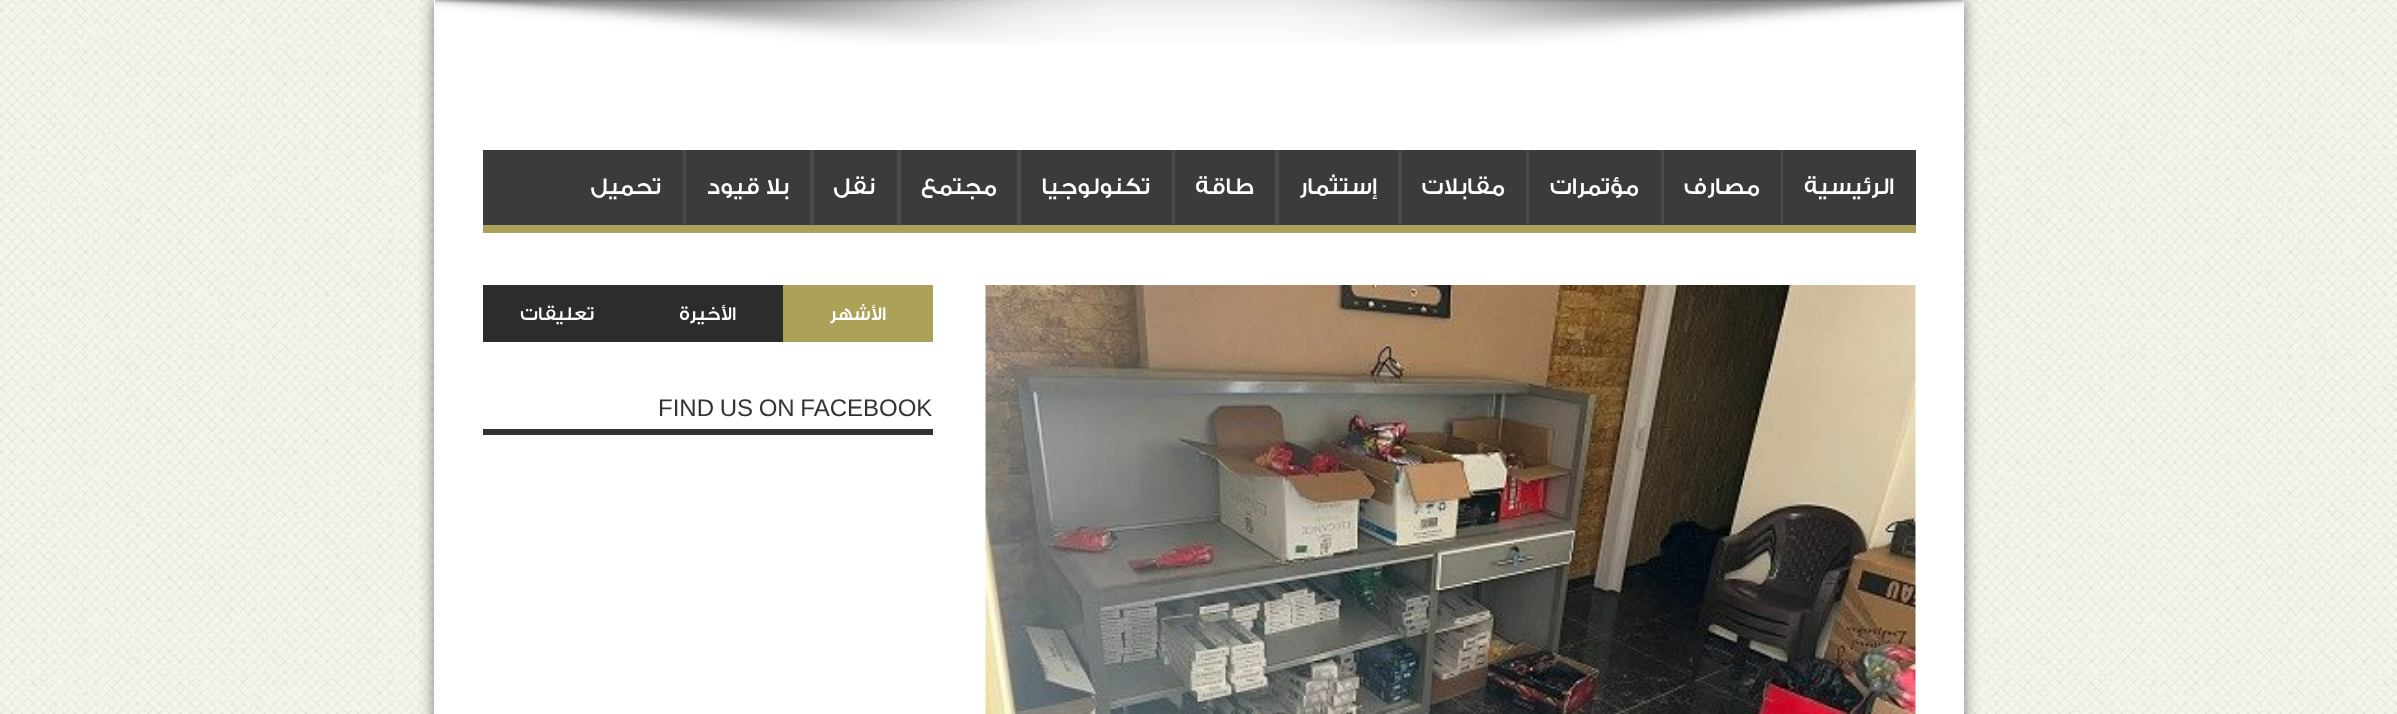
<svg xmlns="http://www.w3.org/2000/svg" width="2397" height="714">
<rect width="100%" height="100%" fill="#f4f2e9"/>
<image x="0" y="0" width="2397" height="714" href="media/1.png"/>
<rect x="434" width="1530" height="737" fill="#00000080" filter="blur(7.5px)"/>
<rect x="434" width="1530" height="714" fill="#fff"/>
<image x="435" y="0" width="1529" height="44" href="media/2.png"/>
<rect x="483" y="150" width="1433" height="75" fill="#3b3b3b"/>
<rect x="483" y="225" width="1433" height="8" fill="#aba159"/>
<text x="1894" y="194" style="font-family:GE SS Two;font-size:24px;font-weight:500;direction:rtl;fill:#fff">الرئيسية</text>
<rect x="1781" y="150" width="2" height="75" fill="#4a4a4a"/>
<rect x="1661" y="150" width="3" height="75" fill="#4a4a4a"/>
<text x="1760" y="194" style="font-family:GE SS Two;font-size:24px;font-weight:500;direction:rtl;fill:#fff">مصارف</text>
<rect x="1526" y="150" width="3" height="75" fill="#4a4a4a"/>
<text x="1639" y="194" style="font-family:GE SS Two;font-size:24px;font-weight:500;direction:rtl;fill:#fff">مؤتمرات</text>
<rect x="1398" y="150" width="4" height="75" fill="#4a4a4a"/>
<text x="1505" y="194" style="font-family:GE SS Two;font-size:24px;font-weight:500;direction:rtl;fill:#fff">مقابلات</text>
<rect x="1275" y="150" width="4" height="75" fill="#4a4a4a"/>
<text x="1377" y="194" style="font-family:GE SS Two;font-size:24px;font-weight:500;direction:rtl;fill:#fff">إستثمار</text>
<rect x="1172" y="150" width="3" height="75" fill="#4a4a4a"/>
<text x="1254" y="194" style="font-family:GE SS Two;font-size:24px;font-weight:500;direction:rtl;fill:#fff">طاقة</text>
<rect x="1017" y="150" width="4" height="75" fill="#4a4a4a"/>
<text x="1150" y="194" style="font-family:GE SS Two;font-size:24px;font-weight:500;direction:rtl;fill:#fff">تكنولوجيا</text>
<rect x="897" y="150" width="4" height="75" fill="#4a4a4a"/>
<text x="997" y="194" style="font-family:GE SS Two;font-size:24px;font-weight:500;direction:rtl;fill:#fff">مجتمع</text>
<rect x="810" y="150" width="4" height="75" fill="#4a4a4a"/>
<text x="875" y="194" style="font-family:GE SS Two;font-size:24px;font-weight:500;direction:rtl;fill:#fff">نقل</text>
<rect x="683" y="150" width="3" height="75" fill="#4a4a4a"/>
<text x="789" y="194" style="font-family:GE SS Two;font-size:24px;font-weight:500;direction:rtl;fill:#fff">بلا قيود</text>
<text x="661" y="194" style="font-family:GE SS Two;font-size:24px;font-weight:500;direction:rtl;fill:#fff">تحميل</text>
<image x="985" y="285" width="931" height="429" href="media/3.png"/>
<rect x="783" y="285" width="150" height="57" fill="#aba159"/>
<text x="886" y="320" style="font-family:GE SS Two;font-size:19.5px;font-weight:500;direction:rtl;fill:#fff">الأشهر</text>
<rect x="483" y="285" width="300" height="57" fill="#2c2c2c"/>
<text x="736" y="320" style="font-family:GE SS Two;font-size:19.5px;font-weight:500;direction:rtl;fill:#fff">الأخيرة</text>
<text x="594" y="320" style="font-family:GE SS Two;font-size:19.5px;font-weight:500;direction:rtl;fill:#fff">تعليقات</text>
<rect x="483" y="429" width="450" height="6" fill="#333"/>
<text x="658" y="416" word-spacing="-1" style="font-family:Liberation Sans;font-size:24px;fill:#333">FIND US ON FACEBOOK</text>
</svg>
